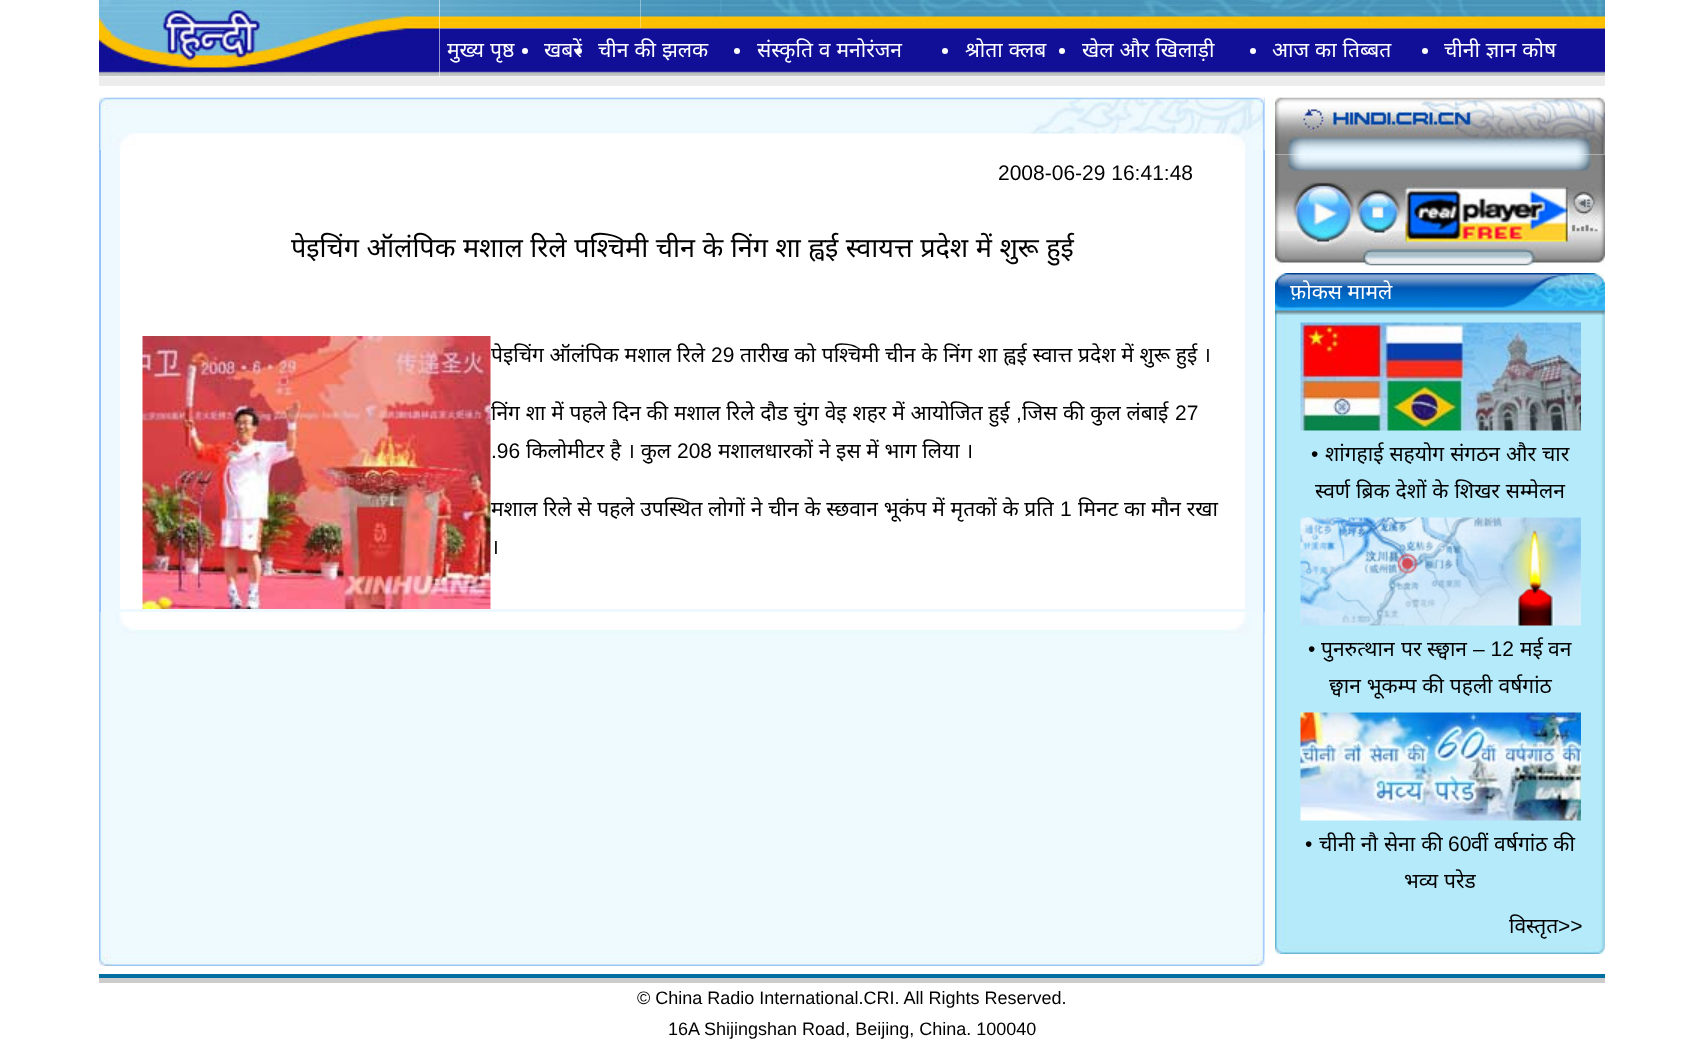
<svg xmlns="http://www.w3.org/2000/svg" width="1703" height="1045">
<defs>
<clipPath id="clip1"><rect x="440" y="29" width="1165" height="48"/></clipPath>
</defs>
<rect width="100%" height="100%" fill="#fff"/>
<image x="99" y="0" width="341" height="77" href="media/1.png"/>
<image x="439" y="0" width="202" height="29" href="media/2.png"/>
<image x="640" y="0" width="965" height="29" href="media/3.png"/>
<image x="439" y="28" width="1166" height="49" href="media/4.png"/>
<g clip-path="url(#clip1)">
<text x="447" y="57" word-spacing="0.5" style="font-family:Noto Sans;font-size:21px;fill:#fff">मुख्य पृष्ठ</text>
</g>
<circle cx="525" cy="51" r="3" fill="#fff"/>
<text x="544" y="57" style="font-family:Noto Sans;font-size:21px;fill:#fff">खबरें</text>
<circle cx="579" cy="51" r="3" fill="#fff"/>
<text x="598" y="57" word-spacing="0.5" style="font-family:Noto Sans;font-size:21px;fill:#fff">चीन की झलक</text>
<circle cx="737" cy="51" r="3" fill="#fff"/>
<text x="757" y="57" word-spacing="0.5" style="font-family:Noto Sans;font-size:21px;fill:#fff">संस्कृति व मनोरंजन</text>
<circle cx="945" cy="51" r="3" fill="#fff"/>
<text x="965" y="57" word-spacing="0.5" style="font-family:Noto Sans;font-size:21px;fill:#fff">श्रोता क्लब</text>
<circle cx="1062" cy="51" r="3" fill="#fff"/>
<text x="1082" y="57" word-spacing="0.5" style="font-family:Noto Sans;font-size:21px;fill:#fff">खेल और खिलाड़ी</text>
<circle cx="1253" cy="51" r="3" fill="#fff"/>
<text x="1272" y="57" word-spacing="0.5" style="font-family:Noto Sans;font-size:21px;fill:#fff">आज का तिब्बत</text>
<circle cx="1425" cy="51" r="3" fill="#fff"/>
<text x="1444" y="57" word-spacing="0.5" style="font-family:Noto Sans;font-size:21px;fill:#fff">चीनी ज्ञान कोष</text>
<rect x="99" y="77" width="1506" height="9" fill="#ededed"/>
<image x="99" y="97" width="1176" height="857" href="media/5.png"/>
<image x="99" y="97" width="1166" height="53" href="media/6.png"/>
<rect x="101" y="150" width="1162" height="462" fill="#eef9ff"/>
<rect x="1263" y="150" width="2" height="462" fill="#96c4fa"/>
<rect x="99" y="150" width="2" height="462" fill="#96c4fa"/>
<rect x="120" y="150" width="1125" height="459" fill="#fff"/>
<text x="998" y="180" style="font-family:Liberation Sans;font-size:21px;fill:#000">2008-06-29 16:41:48</text>
<text x="291" y="257" word-spacing="0.5" style="font-family:Noto Sans;font-size:27px;fill:#000">पेइचिंग ऑलंपिक मशाल रिले पश्चिमी चीन के निंग शा ह्वई स्वायत्त प्रदेश में शुरू हुई</text>
<image x="142" y="336" width="349" height="273" href="media/7.png"/>
<text x="491" y="362" word-spacing="0.3" style="font-family:Noto Sans;font-size:21px;fill:#000">पेइचिंग ऑलंपिक मशाल रिले</text>
<text x="711" y="362" style="font-family:Liberation Sans;font-size:21px;fill:#000">29</text>
<text x="740" y="362" word-spacing="0.3" style="font-family:Noto Sans;font-size:21px;fill:#000">तारीख को पश्चिमी चीन के निंग शा ह्वई स्वात्त प्रदेश में शुरू हुई ।</text>
<text x="491" y="420" word-spacing="0.3" style="font-family:Noto Sans;font-size:21px;fill:#000">निंग शा में पहले दिन की मशाल रिले दौड चुंग वेइ शहर में आयोजित हुई</text>
<text x="1016" y="420" style="font-family:Liberation Sans;font-size:21px;fill:#000">,</text>
<text x="1022" y="420" word-spacing="0.3" style="font-family:Noto Sans;font-size:21px;fill:#000">जिस की कुल लंबाई</text>
<text x="1175" y="420" style="font-family:Liberation Sans;font-size:21px;fill:#000">27</text>
<text x="491" y="458" style="font-family:Liberation Sans;font-size:21px;fill:#000">.96</text>
<text x="526" y="458" word-spacing="0.25" style="font-family:Noto Sans;font-size:21px;fill:#000">किलोमीटर है । कुल</text>
<text x="677" y="458" style="font-family:Liberation Sans;font-size:21px;fill:#000">208</text>
<text x="718" y="458" word-spacing="0.25" style="font-family:Noto Sans;font-size:21px;fill:#000">मशालधारकों ने इस में भाग लिया ।</text>
<text x="491" y="516" word-spacing="0.3" style="font-family:Noto Sans;font-size:21px;fill:#000">मशाल रिले से पहले उपस्थित लोगों ने चीन के स्छवान भूकंप में मृतकों के प्रति</text>
<text x="1060" y="516" style="font-family:Liberation Sans;font-size:21px;fill:#000">1</text>
<text x="1078" y="516" word-spacing="0.3" style="font-family:Noto Sans;font-size:21px;fill:#000">मिनट का मौन रखा</text>
<text x="491" y="554" style="font-family:Noto Sans;font-size:21px;fill:#000">।</text>
<image x="115" y="612" width="1150" height="22" href="media/8.png"/>
<image x="1275" y="97" width="330" height="53" href="media/9.png"/>
<image x="1275" y="150" width="330" height="5" href="media/10.png"/>
<image x="1275" y="154" width="330" height="17" href="media/11.png"/>
<image x="1275" y="171" width="330" height="95" href="media/12.png"/>
<image x="1275" y="273" width="330" height="42" href="media/13.png"/>
<text x="1290" y="299" style="font-family:Noto Sans;font-size:21px;fill:#fff">फ़ोकस मामले</text>
<image x="1275" y="315" width="330" height="630" href="media/14.png"/>
<image x="1300" y="322" width="281" height="109" href="media/15.png"/>
<text x="1311" y="461" style="font-family:Liberation Sans;font-size:21px;fill:#000">•</text>
<text x="1325" y="461" word-spacing="0.5" style="font-family:Noto Sans;font-size:21px;fill:#000">शांगहाई सहयोग संगठन और चार</text>
<text x="1315" y="498" word-spacing="0.5" style="font-family:Noto Sans;font-size:21px;fill:#000">स्वर्ण ब्रिक देशों के शिखर सम्मेलन</text>
<image x="1300" y="517" width="281" height="109" href="media/16.png"/>
<text x="1308" y="656" style="font-family:Liberation Sans;font-size:21px;fill:#000">•</text>
<text x="1321" y="656" style="font-family:Noto Sans;font-size:21px;fill:#000">पुनरुत्थान</text>
<text x="1401" y="656" style="font-family:Noto Sans;font-size:21px;fill:#000">पर</text>
<text x="1427" y="656" style="font-family:Noto Sans;font-size:21px;fill:#000">स्छ्वान</text>
<text x="1473" y="656" style="font-family:Liberation Sans;font-size:21px;fill:#000">– 12</text>
<text x="1520" y="656" style="font-family:Noto Sans;font-size:21px;fill:#000">मई</text>
<text x="1548" y="656" style="font-family:Noto Sans;font-size:21px;fill:#000">वन</text>
<text x="1329" y="693" word-spacing="0.5" style="font-family:Noto Sans;font-size:21px;fill:#000">छ्वान भूकम्प की पहली वर्षगांठ</text>
<image x="1300" y="712" width="281" height="109" href="media/17.png"/>
<text x="1305" y="851" style="font-family:Liberation Sans;font-size:21px;fill:#000">•</text>
<text x="1319" y="851" word-spacing="0.5" style="font-family:Noto Sans;font-size:21px;fill:#000">चीनी नौ सेना की</text>
<text x="1448" y="851" style="font-family:Liberation Sans;font-size:21px;fill:#000">60</text>
<text x="1471" y="851" word-spacing="0.5" style="font-family:Noto Sans;font-size:21px;fill:#000">वीं वर्षगांठ की</text>
<text x="1404" y="888" word-spacing="0.5" style="font-family:Noto Sans;font-size:21px;fill:#000">भव्य परेड</text>
<text x="1509" y="933" style="font-family:Noto Sans;font-size:21px;fill:#000">विस्तृत</text>
<text x="1558" y="933" style="font-family:Liberation Sans;font-size:21px;fill:#000">&gt;&gt;</text>
<image x="1275" y="945" width="330" height="9" href="media/18.png"/>
<rect x="1264" y="954" width="1" height="12" fill="#eef9ff"/>
<image x="99" y="954" width="1166" height="12" href="media/19.png"/>
<rect x="99" y="974" width="1506" height="4" fill="#006ea3"/>
<rect x="99" y="978" width="1506" height="5" fill="#ccc"/>
<text x="637" y="1004" style="font-family:Liberation Sans;font-size:18px;fill:#000">© China Radio International.CRI. All Rights Reserved.</text>
<text x="668" y="1035" style="font-family:Liberation Sans;font-size:18px;fill:#000">16A Shijingshan Road, Beijing, China. 100040</text>
</svg>
